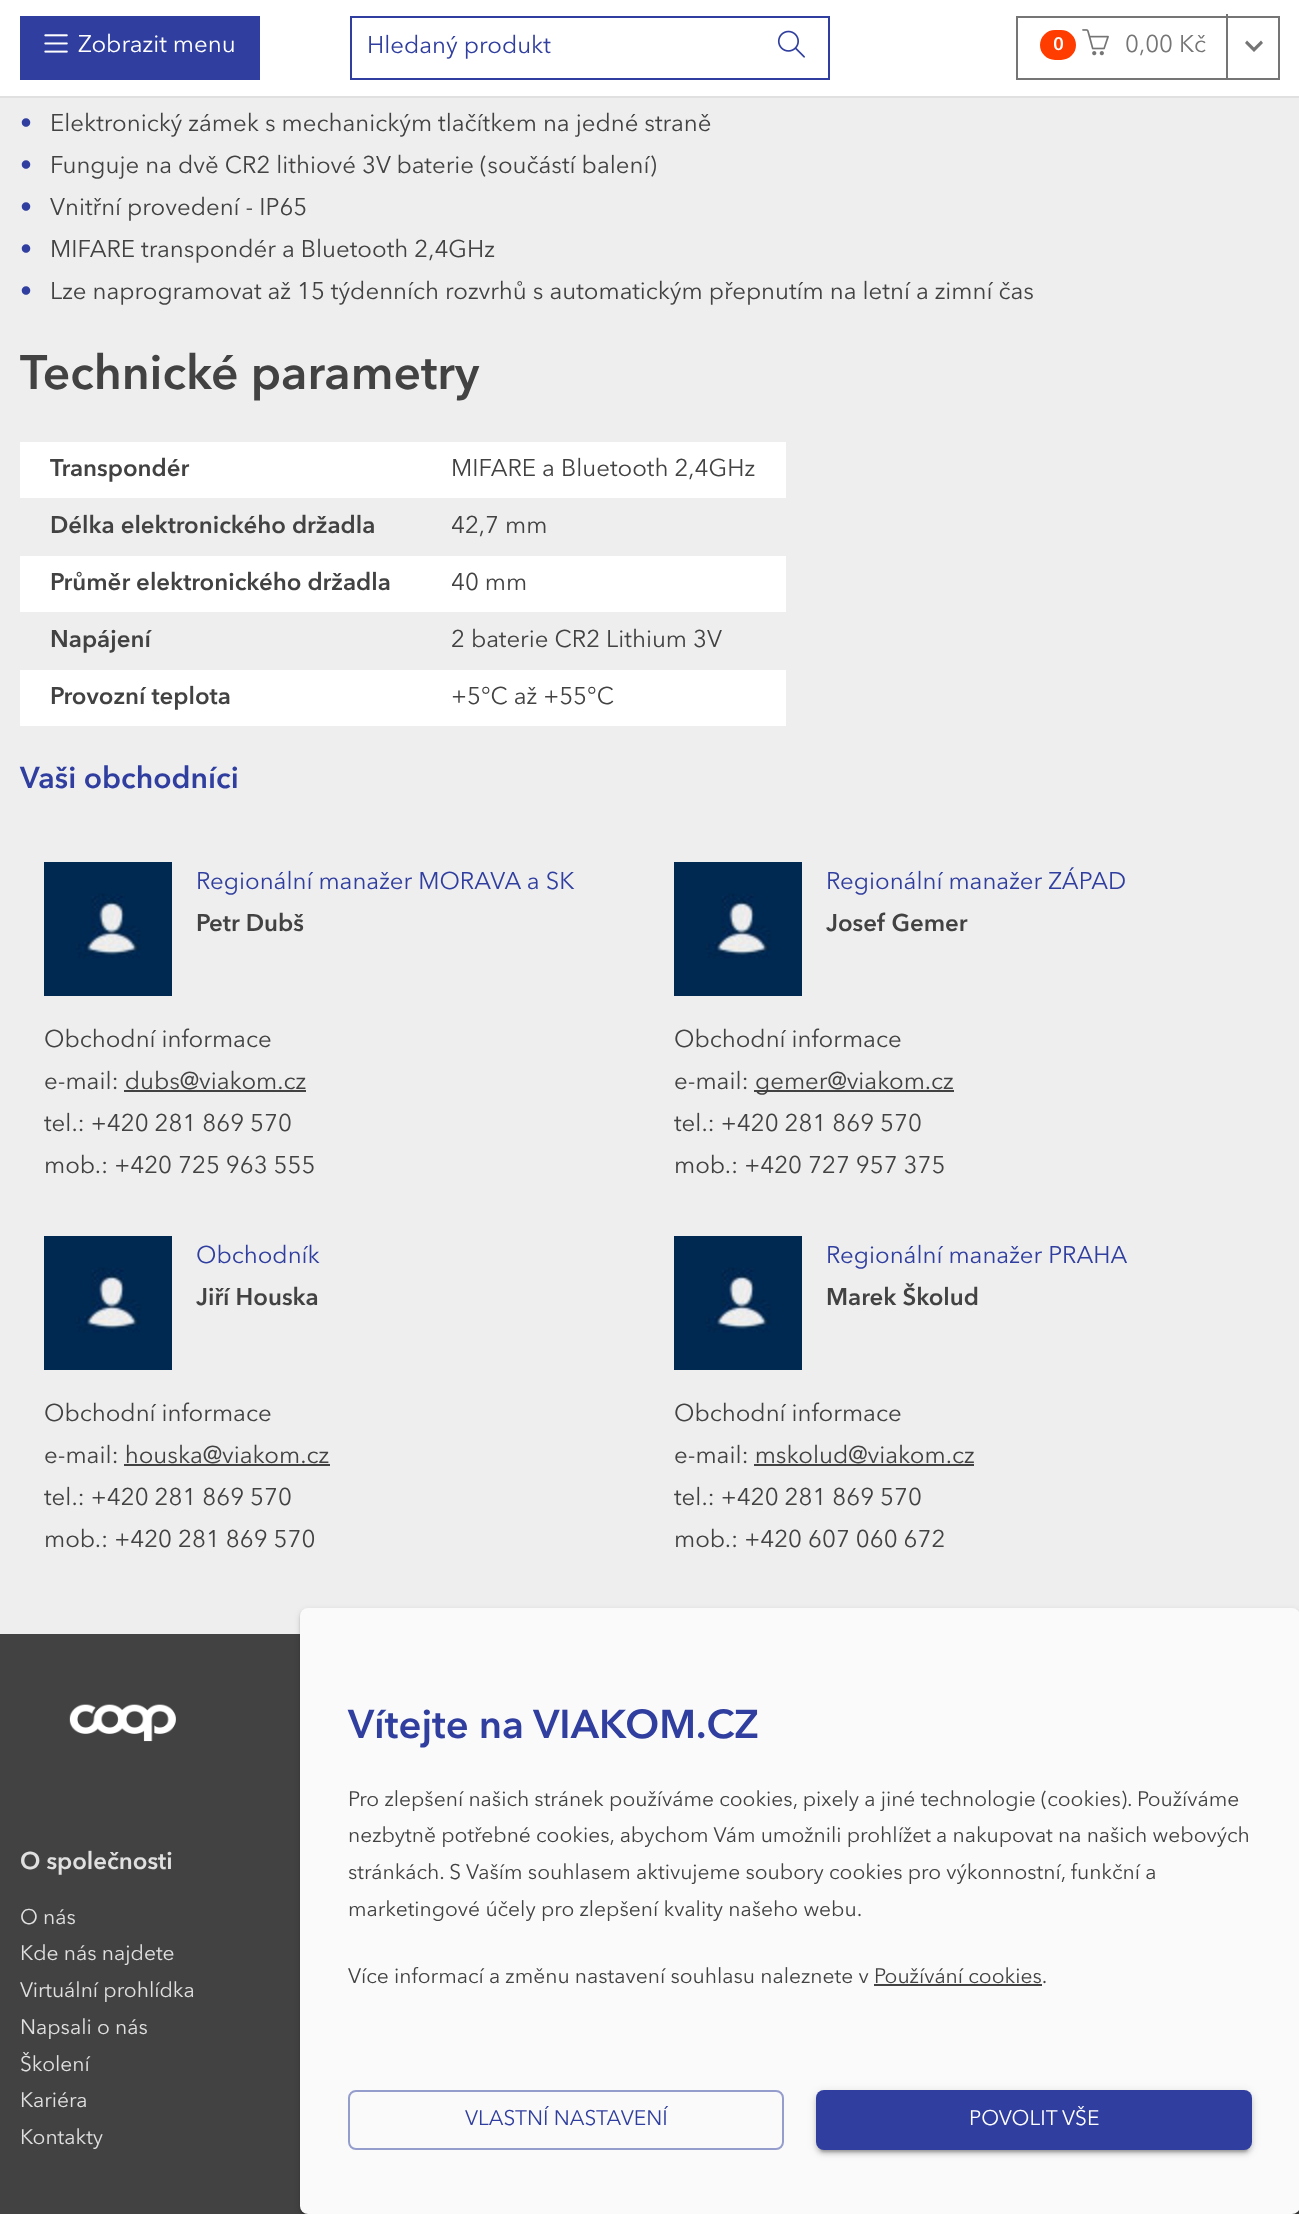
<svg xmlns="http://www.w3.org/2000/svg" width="1299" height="2214">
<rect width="100%" height="100%" fill="#eee"/>
<rect width="1299" height="96" fill="#fff"/>
<rect y="96" width="1299" height="2" fill="#e0e0e0"/>
<rect x="20" y="16" width="240" height="64" fill="#303f9f"/>
<image x="44" y="34" width="24" height="19" href="media/1.png"/>
<text x="78" y="52" style="font-family:'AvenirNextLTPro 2';font-size:24px;fill:#fff">Zobrazit menu</text>
<rect x="350" y="16" width="480" height="2" fill="#303f9f"/>
<rect x="350" y="78" width="410" height="2" fill="#303f9f"/>
<rect x="350" y="16" width="2" height="64" fill="#303f9f"/>
<text x="367" y="53" style="font-family:'AvenirNextLTPro 2';font-size:24px;fill:#303f9f">Hledaný produkt</text>
<rect x="828" y="16" width="2" height="64" fill="#303f9f"/>
<rect x="756" y="78" width="74" height="2" fill="#303f9f"/>
<image x="777" y="30" width="28" height="28" href="media/2.png"/>
<rect x="1017" y="17" width="262" height="62" fill="none" stroke="#757575" stroke-width="2"/>
<rect x="1041" y="31" width="34" height="28" rx="14" fill="#ff3d00" stroke="#ff3d00" stroke-width="2"/>
<text x="1053" y="50" style="font-family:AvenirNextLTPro;font-size:18px;fill:#fff">0</text>
<image x="1082" y="29" width="27" height="27" href="media/3.png"/>
<text x="1125" y="52" style="font-family:'AvenirNextLTPro 2';font-size:24px;fill:#757575">0,00 Kč</text>
<rect x="1226" y="14" width="2" height="66" fill="#757575"/>
<path d="M1247 40.5l7 7l7-7l2 2.5l-9 9l-9-9z" fill="#757575"/>
<text x="20" y="131" style="font-family:'AvenirNextLTPro 2';font-size:24px;fill:#303f9f">•</text>
<text x="50" y="131" style="font-family:'AvenirNextLTPro 2';font-size:24px;fill:#424242">Elektronický zámek s mechanickým tlačítkem na jedné straně</text>
<text x="20" y="173" style="font-family:'AvenirNextLTPro 2';font-size:24px;fill:#303f9f">•</text>
<text x="50" y="173" style="font-family:'AvenirNextLTPro 2';font-size:24px;fill:#424242">Funguje na dvě CR2 lithiové 3V baterie (součástí balení)</text>
<text x="20" y="215" style="font-family:'AvenirNextLTPro 2';font-size:24px;fill:#303f9f">•</text>
<text x="50" y="215" style="font-family:'AvenirNextLTPro 2';font-size:24px;fill:#424242">Vnitřní provedení - IP65</text>
<text x="20" y="257" style="font-family:'AvenirNextLTPro 2';font-size:24px;fill:#303f9f">•</text>
<text x="50" y="257" style="font-family:'AvenirNextLTPro 2';font-size:24px;fill:#424242">MIFARE transpondér a Bluetooth 2,4GHz</text>
<text x="20" y="299" style="font-family:'AvenirNextLTPro 2';font-size:24px;fill:#303f9f">•</text>
<text x="50" y="299" style="font-family:'AvenirNextLTPro 2';font-size:24px;fill:#424242">Lze naprogramovat až 15 týdenních rozvrhů s automatickým přepnutím na letní a zimní čas</text>
<text x="20" y="389" style="font-family:AvenirNextLTPro;font-size:48px;fill:#424242">Technické parametry</text>
<rect x="20" y="442" width="766" height="56" fill="#fff"/>
<text x="50" y="476" style="font-family:AvenirNextLTPro;font-size:24px;fill:#424242">Transpondér</text>
<text x="451" y="476" style="font-family:'AvenirNextLTPro 2';font-size:24px;fill:#424242">MIFARE a Bluetooth 2,4GHz</text>
<text x="50" y="533" style="font-family:AvenirNextLTPro;font-size:24px;fill:#424242">Délka elektronického držadla</text>
<text x="451" y="533" style="font-family:'AvenirNextLTPro 2';font-size:24px;fill:#424242">42,7 mm</text>
<rect x="20" y="556" width="766" height="56" fill="#fff"/>
<text x="50" y="590" style="font-family:AvenirNextLTPro;font-size:24px;fill:#424242">Průměr elektronického držadla</text>
<text x="451" y="590" style="font-family:'AvenirNextLTPro 2';font-size:24px;fill:#424242">40 mm</text>
<text x="50" y="647" style="font-family:AvenirNextLTPro;font-size:24px;fill:#424242">Napájení</text>
<text x="451" y="647" style="font-family:'AvenirNextLTPro 2';font-size:24px;fill:#424242">2 baterie CR2 Lithium 3V</text>
<rect x="20" y="670" width="766" height="56" fill="#fff"/>
<text x="50" y="704" style="font-family:AvenirNextLTPro;font-size:24px;fill:#424242">Provozní teplota</text>
<text x="451" y="704" style="font-family:'AvenirNextLTPro 2';font-size:24px;fill:#424242">+5°C až +55°C</text>
<text x="20" y="788" style="font-family:AvenirNextLTPro;font-size:30px;fill:#303f9f">Vaši obchodníci</text>
<image x="44" y="862" width="128" height="134" href="media/4.png"/>
<text x="196" y="889" style="font-family:'AvenirNextLTPro 2';font-size:24px;fill:#303f9f">Regionální manažer MORAVA a SK</text>
<text x="196" y="931" style="font-family:AvenirNextLTPro;font-size:24px;fill:#424242">Petr Dubš</text>
<text x="44" y="1047" style="font-family:'AvenirNextLTPro 2';font-size:24px;fill:#424242">Obchodní informace</text>
<text x="44" y="1089" style="font-family:'AvenirNextLTPro 2';font-size:24px;fill:#424242">e-mail: dubs@viakom.cz</text>
<rect x="124" y="1090" width="182" height="2" fill="#424242"/>
<text x="44" y="1131" style="font-family:'AvenirNextLTPro 2';font-size:24px;fill:#424242">tel.: +420 281 869 570</text>
<text x="44" y="1173" style="font-family:'AvenirNextLTPro 2';font-size:24px;fill:#424242">mob.: +420 725 963 555</text>
<image x="674" y="862" width="128" height="134" href="media/4.png"/>
<text x="826" y="889" style="font-family:'AvenirNextLTPro 2';font-size:24px;fill:#303f9f">Regionální manažer ZÁPAD</text>
<text x="826" y="931" style="font-family:AvenirNextLTPro;font-size:24px;fill:#424242">Josef Gemer</text>
<text x="674" y="1047" style="font-family:'AvenirNextLTPro 2';font-size:24px;fill:#424242">Obchodní informace</text>
<text x="674" y="1089" style="font-family:'AvenirNextLTPro 2';font-size:24px;fill:#424242">e-mail:</text>
<rect x="754" y="1090" width="200" height="2" fill="#424242"/>
<text x="755" y="1089" style="font-family:'AvenirNextLTPro 2';font-size:24px;fill:#424242">gemer@viakom.cz</text>
<text x="674" y="1131" style="font-family:'AvenirNextLTPro 2';font-size:24px;fill:#424242">tel.: +420 281 869 570</text>
<text x="674" y="1173" style="font-family:'AvenirNextLTPro 2';font-size:24px;fill:#424242">mob.: +420 727 957 375</text>
<image x="44" y="1236" width="128" height="134" href="media/4.png"/>
<text x="196" y="1263" style="font-family:'AvenirNextLTPro 2';font-size:24px;fill:#303f9f">Obchodník</text>
<text x="196" y="1305" style="font-family:AvenirNextLTPro;font-size:24px;fill:#424242">Jiří Houska</text>
<text x="44" y="1421" style="font-family:'AvenirNextLTPro 2';font-size:24px;fill:#424242">Obchodní informace</text>
<text x="44" y="1463" style="font-family:'AvenirNextLTPro 2';font-size:24px;fill:#424242">e-mail: houska@viakom.cz</text>
<rect x="124" y="1464" width="206" height="2" fill="#424242"/>
<text x="44" y="1505" style="font-family:'AvenirNextLTPro 2';font-size:24px;fill:#424242">tel.: +420 281 869 570</text>
<text x="44" y="1547" style="font-family:'AvenirNextLTPro 2';font-size:24px;fill:#424242">mob.: +420 281 869 570</text>
<image x="674" y="1236" width="128" height="134" href="media/4.png"/>
<text x="826" y="1263" style="font-family:'AvenirNextLTPro 2';font-size:24px;fill:#303f9f">Regionální manažer PRAHA</text>
<text x="826" y="1305" style="font-family:AvenirNextLTPro;font-size:24px;fill:#424242">Marek Školud</text>
<text x="674" y="1421" style="font-family:'AvenirNextLTPro 2';font-size:24px;fill:#424242">Obchodní informace</text>
<text x="674" y="1463" style="font-family:'AvenirNextLTPro 2';font-size:24px;fill:#424242">e-mail: mskolud@viakom.cz</text>
<rect x="754" y="1464" width="220" height="2" fill="#424242"/>
<text x="674" y="1505" style="font-family:'AvenirNextLTPro 2';font-size:24px;fill:#424242">tel.: +420 281 869 570</text>
<text x="674" y="1547" style="font-family:'AvenirNextLTPro 2';font-size:24px;fill:#424242">mob.: +420 607 060 672</text>
<rect y="1634" width="1299" height="580" fill="#424242"/>
<image x="69" y="1704" width="107" height="38" href="media/5.png"/>
<text x="20" y="1869" style="font-family:AvenirNextLTPro;font-size:24px;fill:#e0e0e0">O společnosti</text>
<text x="20" y="1924" style="font-family:'AvenirNextLTPro 2';font-size:21px;fill:#e0e0e0">O nás</text>
<text x="20" y="1960" style="font-family:'AvenirNextLTPro 2';font-size:21px;fill:#e0e0e0">Kde nás najdete</text>
<text x="20" y="1997" style="font-family:'AvenirNextLTPro 2';font-size:21px;fill:#e0e0e0">Virtuální prohlídka</text>
<text x="20" y="2034" style="font-family:'AvenirNextLTPro 2';font-size:21px;fill:#e0e0e0">Napsali o nás</text>
<text x="20" y="2071" style="font-family:'AvenirNextLTPro 2';font-size:21px;fill:#e0e0e0">Školení</text>
<text x="20" y="2107" style="font-family:'AvenirNextLTPro 2';font-size:21px;fill:#e0e0e0">Kariéra</text>
<text x="20" y="2144" style="font-family:'AvenirNextLTPro 2';font-size:21px;fill:#e0e0e0">Kontakty</text>
<rect x="300" y="1610" width="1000" height="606" rx="8" fill="#0000001f" filter="blur(3px)"/>
<rect x="300" y="1610" width="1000" height="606" rx="8" fill="#00000024" filter="blur(1px)"/>
<rect x="302" y="1614" width="996" height="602" rx="6" fill="#00000033" filter="blur(1px)"/>
<rect x="300" y="1608" width="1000" height="606" rx="8" fill="#fafafa"/>
<text x="348" y="1738" style="font-family:AvenirNextLTPro;font-size:40px;fill:#303f9f">Vítejte na VIAKOM.CZ</text>
<text x="348" y="1806" style="font-family:'AvenirNextLTPro 2';font-size:21px;fill:#424242">Pro zlepšení našich stránek používáme cookies, pixely a jiné technologie (cookies). Používáme</text>
<text x="348" y="1842" style="font-family:'AvenirNextLTPro 2';font-size:21px;fill:#424242">nezbytně potřebné cookies, abychom Vám umožnili prohlížet a nakupovat na našich webových</text>
<text x="348" y="1879" style="font-family:'AvenirNextLTPro 2';font-size:21px;fill:#424242">stránkách. S Vaším souhlasem aktivujeme soubory cookies pro výkonnostní, funkční a</text>
<text x="348" y="1916" style="font-family:'AvenirNextLTPro 2';font-size:21px;fill:#424242">marketingové účely pro zlepšení kvality našeho webu.</text>
<text x="348" y="1983" style="font-family:'AvenirNextLTPro 2';font-size:21px;fill:#424242">Více informací a změnu nastavení souhlasu naleznete v Používání cookies.</text>
<rect x="874" y="1984" width="168" height="2" fill="#424242"/>
<rect x="349" y="2091" width="434" height="58" rx="7" fill="none" stroke="#959dcd" stroke-width="2"/>
<text x="465" y="2125" style="font-family:'AvenirNextLTPro 2';font-size:21px;fill:#303f9f">VLASTNÍ NASTAVENÍ</text>
<rect x="816" y="2092" width="436" height="60" rx="8" fill="#0000001f" filter="blur(5px)"/>
<rect x="816" y="2094" width="436" height="60" rx="8" fill="#00000024" filter="blur(2px)"/>
<rect x="820" y="2100" width="428" height="52" rx="4" fill="#00000033" filter="blur(1px)"/>
<rect x="816" y="2090" width="436" height="60" rx="8" fill="#303f9f"/>
<text x="969" y="2125" style="font-family:'AvenirNextLTPro 2';font-size:21px;fill:#fff">POVOLIT VŠE</text>
</svg>
